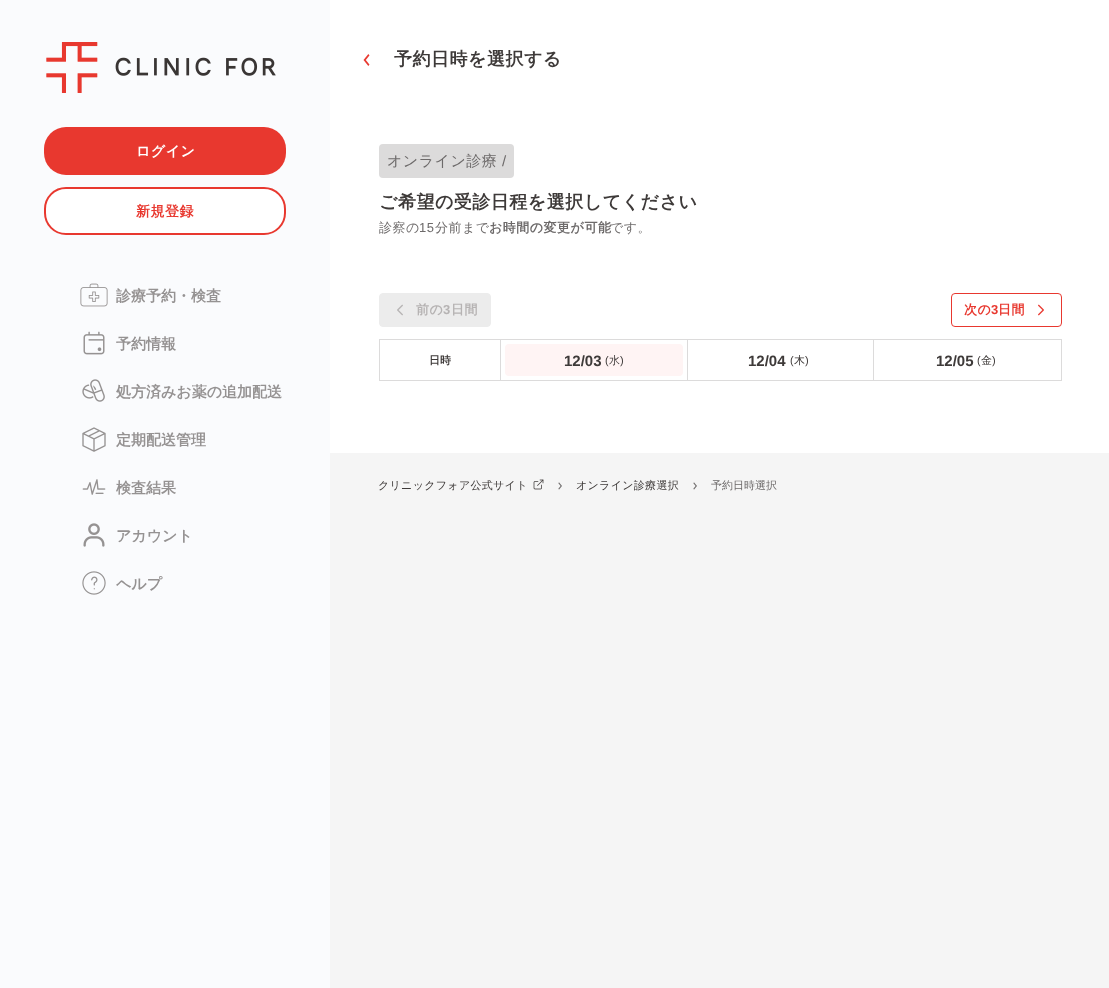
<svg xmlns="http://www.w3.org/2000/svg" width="1109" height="988">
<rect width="100%" height="100%" fill="#fff"/>
<rect width="330" height="988" fill="#fafbfd"/>
<image x="46" y="42" width="230" height="51" href="media/1.png"/>
<rect x="44" y="127" width="242" height="48" rx="22" fill="#e8382f"/>
<text x="136" y="156" style="font-family:WenQuanYi Zen Hei;font-size:14px;font-weight:bold;letter-spacing:0.5px;fill:#fff">ログイン</text>
<rect x="45" y="188" width="240" height="46" rx="21" fill="#fff" stroke="#e8382f" stroke-width="2"/>
<text x="136" y="216" style="font-family:WenQuanYi Zen Hei;font-size:14px;font-weight:bold;letter-spacing:0.5px;fill:#e8382f">新規登録</text>
<image x="80" y="283" width="28" height="24" href="media/2.png"/>
<text x="116" y="301" style="font-family:WenQuanYi Zen Hei;font-size:15px;font-weight:bold;fill:#959292">診療予約・検査</text>
<image x="83" y="331" width="22" height="24" href="media/3.png"/>
<text x="116" y="349" style="font-family:WenQuanYi Zen Hei;font-size:15px;font-weight:bold;fill:#959292">予約情報</text>
<image x="82" y="379" width="23" height="23" href="media/4.png"/>
<text x="116" y="397" style="font-family:WenQuanYi Zen Hei;font-size:15px;font-weight:bold;fill:#959292">処方済みお薬の追加配送</text>
<image x="82" y="427" width="24" height="25" href="media/5.png"/>
<text x="116" y="445" style="font-family:WenQuanYi Zen Hei;font-size:15px;font-weight:bold;fill:#959292">定期配送管理</text>
<image x="82" y="479" width="24" height="16" href="media/6.png"/>
<text x="116" y="493" style="font-family:WenQuanYi Zen Hei;font-size:15px;font-weight:bold;fill:#959292">検査結果</text>
<image x="83" y="523" width="22" height="24" href="media/7.png"/>
<text x="116" y="541" style="font-family:WenQuanYi Zen Hei;font-size:15px;font-weight:bold;fill:#959292">アカウント</text>
<image x="82" y="571" width="24" height="24" href="media/8.png"/>
<text x="116" y="589" style="font-family:WenQuanYi Zen Hei;font-size:15px;font-weight:bold;fill:#959292">ヘルプ</text>
<image x="363" y="54" width="7" height="12" href="media/9.png"/>
<text x="394" y="65" style="font-family:WenQuanYi Zen Hei;font-size:18px;font-weight:bold;letter-spacing:0.5px;fill:#3e3a39">予約日時を選択する</text>
<rect x="330" y="453" width="779" height="535" fill="#f5f5f5"/>
<rect x="379" y="144" width="135" height="34" rx="4" fill="#dcdbdb"/>
<text x="387" y="166" style="font-family:WenQuanYi Zen Hei;font-size:15px;font-weight:500;letter-spacing:0.5px;fill:#6d6a6a">オンライン診療</text>
<text x="502" y="166" style="font-family:Liberation Sans;font-size:15px;letter-spacing:0.5px;fill:#6d6a6a">/</text>
<text x="379" y="208" style="font-family:WenQuanYi Zen Hei;font-size:18px;font-weight:bold;letter-spacing:0.5px;fill:#3e3a39">ご希望の受診日程を選択してください</text>
<text x="379" y="232" style="font-family:WenQuanYi Zen Hei;font-size:13px;font-weight:500;letter-spacing:0.5px;fill:#6d6a6a">診察の</text>
<text x="419" y="232" style="font-family:Liberation Sans;font-size:13px;letter-spacing:0.5px;fill:#6d6a6a">15</text>
<text x="435" y="232" style="font-family:WenQuanYi Zen Hei;font-size:13px;font-weight:500;letter-spacing:0.5px;fill:#6d6a6a">分前まで</text>
<text x="489" y="232" style="font-family:WenQuanYi Zen Hei;font-size:13px;font-weight:bold;letter-spacing:0.5px;fill:#6d6a6a">お時間の変更が可能</text>
<text x="610" y="232" style="font-family:WenQuanYi Zen Hei;font-size:13px;font-weight:500;letter-spacing:0.5px;fill:#6d6a6a">です。</text>
<rect x="379.5" y="293.5" width="111" height="33" rx="3.5" fill="#ececec" stroke="#ececec"/>
<image x="397" y="304" width="6" height="12" href="media/10.png"/>
<text x="416" y="314" style="font-family:WenQuanYi Zen Hei;font-size:13px;font-weight:bold;letter-spacing:0.5px;fill:#b6b3b3">前の</text>
<text x="443" y="314" style="font-family:Liberation Sans;font-size:13px;font-weight:bold;letter-spacing:0.5px;fill:#b6b3b3">3</text>
<text x="451" y="314" style="font-family:WenQuanYi Zen Hei;font-size:13px;font-weight:bold;letter-spacing:0.5px;fill:#b6b3b3">日間</text>
<rect x="951.5" y="293.5" width="110" height="33" rx="3.5" fill="none" stroke="#e8382f"/>
<text x="964" y="314" style="font-family:WenQuanYi Zen Hei;font-size:13px;font-weight:bold;letter-spacing:0.5px;fill:#e8382f">次の</text>
<text x="991" y="314" style="font-family:Liberation Sans;font-size:13px;font-weight:bold;letter-spacing:0.5px;fill:#e8382f">3</text>
<text x="998" y="314" style="font-family:WenQuanYi Zen Hei;font-size:13px;font-weight:bold;letter-spacing:0.5px;fill:#e8382f">日間</text>
<image x="1038" y="304" width="6" height="12" href="media/11.png"/>
<rect x="379.5" y="339.5" width="682" height="41" fill="none" stroke="#dcdbdb"/>
<rect x="500" y="340" width="1" height="40" fill="#dcdbdb"/>
<text x="429" y="364" style="font-family:WenQuanYi Zen Hei;font-size:11px;font-weight:bold;fill:#3e3a39">日時</text>
<rect x="687" y="340" width="1" height="40" fill="#dcdbdb"/>
<rect x="505" y="344" width="178" height="32" rx="4" fill="#fff4f4"/>
<text x="564" y="366" style="font-family:Liberation Sans;font-size:15px;font-weight:bold;fill:#3e3a39">12/03</text>
<text x="605" y="364" style="font-family:Liberation Sans;font-size:11px;fill:#3e3a39">(</text>
<text x="609" y="364" style="font-family:WenQuanYi Zen Hei;font-size:11px;font-weight:500;fill:#3e3a39">水</text>
<text x="620" y="364" style="font-family:Liberation Sans;font-size:11px;fill:#3e3a39">)</text>
<rect x="873" y="340" width="1" height="40" fill="#dcdbdb"/>
<text x="748" y="366" style="font-family:Liberation Sans;font-size:15px;font-weight:bold;fill:#3e3a39">12/04</text>
<text x="790" y="364" style="font-family:Liberation Sans;font-size:11px;fill:#3e3a39">(</text>
<text x="794" y="364" style="font-family:WenQuanYi Zen Hei;font-size:11px;font-weight:500;fill:#3e3a39">木</text>
<text x="805" y="364" style="font-family:Liberation Sans;font-size:11px;fill:#3e3a39">)</text>
<text x="936" y="366" style="font-family:Liberation Sans;font-size:15px;font-weight:bold;fill:#3e3a39">12/05</text>
<text x="977" y="364" style="font-family:Liberation Sans;font-size:11px;fill:#3e3a39">(</text>
<text x="981" y="364" style="font-family:WenQuanYi Zen Hei;font-size:11px;font-weight:500;fill:#3e3a39">金</text>
<text x="992" y="364" style="font-family:Liberation Sans;font-size:11px;fill:#3e3a39">)</text>
<text x="378" y="489" style="font-family:WenQuanYi Zen Hei;font-size:11px;font-weight:500;letter-spacing:0.3px;fill:#3e3a39">クリニックフォア公式サイト</text>
<image x="533" y="479" width="11" height="11" href="media/12.png"/>
<image x="558" y="482" width="4" height="8" href="media/13.png"/>
<text x="576" y="489" style="font-family:WenQuanYi Zen Hei;font-size:11px;font-weight:500;letter-spacing:0.3px;fill:#3e3a39">オンライン診療選択</text>
<image x="693" y="482" width="4" height="8" href="media/13.png"/>
<text x="711" y="489" style="font-family:WenQuanYi Zen Hei;font-size:11px;font-weight:500;fill:#6d6a6a">予約日時選択</text>
</svg>
